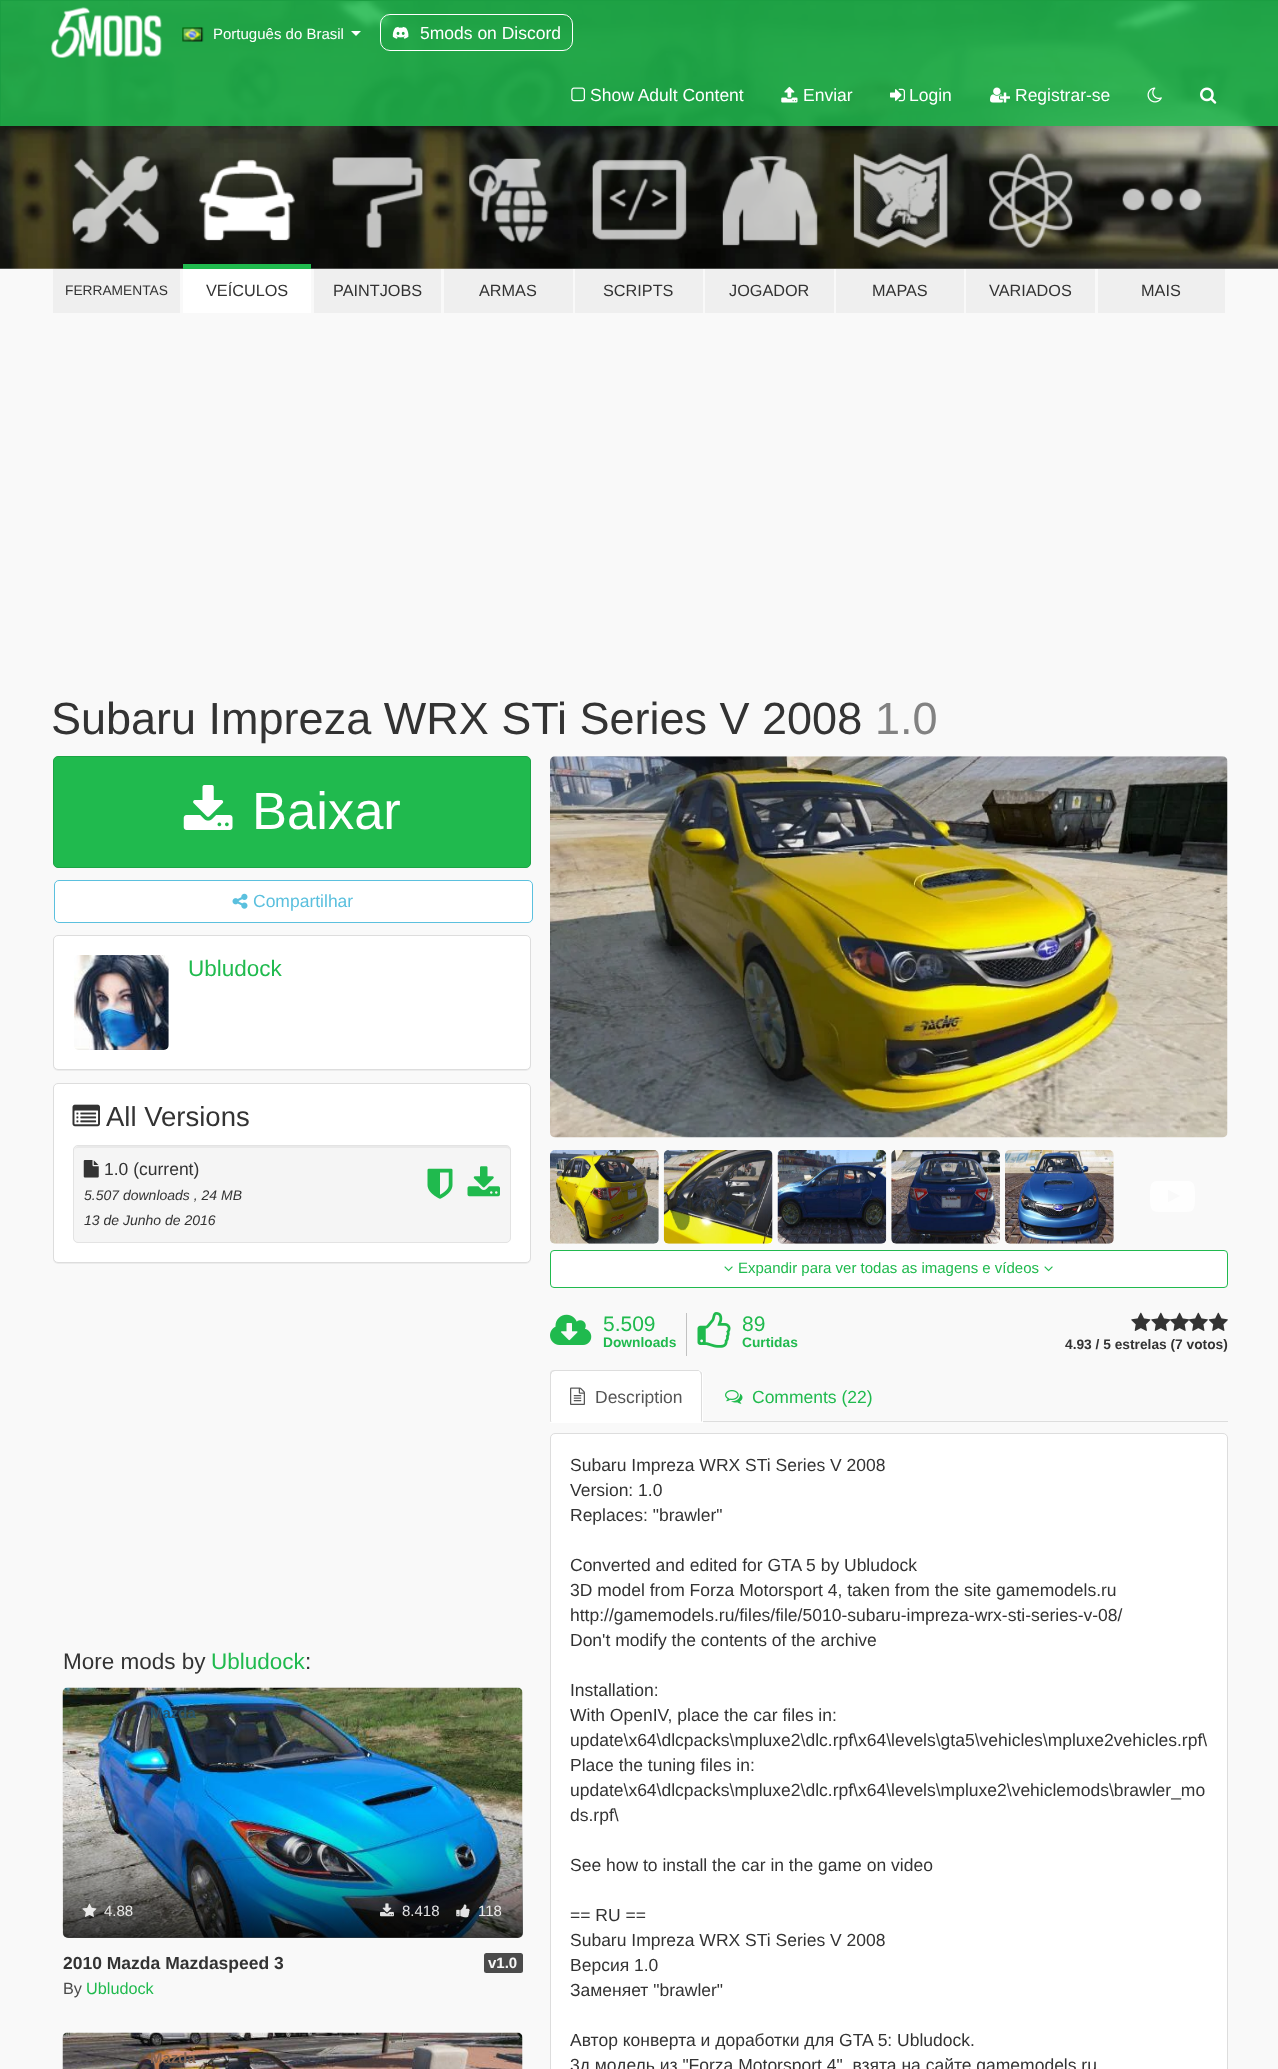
<svg xmlns="http://www.w3.org/2000/svg" width="1278" height="2069">
<defs>
<linearGradient id="g1" gradientUnits="userSpaceOnUse" x1="293" y1="1688" x2="293" y2="1938"><stop offset="0.5" stop-color="#000" stop-opacity="0"/><stop offset="0.75" stop-color="#000" stop-opacity="0.25"/><stop offset="1" stop-color="#000" stop-opacity="0.75"/></linearGradient>
</defs>
<rect width="100%" height="100%" fill="#f9f9f9"/>
<image x="0" y="1" width="1278" height="268" href="media/10.png"/>
<rect x="1" y="1" width="1277" height="125" fill="#20ba4ed9"/>
<rect width="1278" height="1" fill="#1b9e42"/>
<rect width="1" height="126" fill="#1b9e42"/>
<image x="51" y="7" width="111" height="51" href="media/1.png"/>
<image x="182" y="27" width="22" height="15" href="media/2.png"/>
<text x="213" y="39" style="font-family:Liberation Sans;font-size:15px;fill:#fff">Português do Brasil</text>
<path d="M351 31h10l-5 5z" fill="#fff"/>
<rect x="380.5" y="14.5" width="192" height="36" rx="9.5" fill="none" stroke="#fff"/>
<image x="392" y="26" width="17" height="13" href="media/3.png"/>
<text x="420" y="39" style="font-family:Liberation Sans;font-size:17.5px;fill:#fff">5mods on Discord</text>
<image x="571" y="87" width="14" height="15" href="media/4.png"/>
<text x="590" y="101" style="font-family:Liberation Sans;font-size:17.5px;fill:#fff">Show Adult Content</text>
<image x="781" y="86" width="17" height="17" href="media/5.png"/>
<text x="803" y="101" style="font-family:Liberation Sans;font-size:17.5px;fill:#fff">Enviar</text>
<image x="890" y="88" width="15" height="14" href="media/6.png"/>
<text x="909" y="101" style="font-family:Liberation Sans;font-size:17.5px;fill:#fff">Login</text>
<image x="990" y="87" width="20" height="16" href="media/7.png"/>
<text x="1015" y="101" style="font-family:Liberation Sans;font-size:17.5px;fill:#fff">Registrar-se</text>
<image x="1147" y="87" width="15" height="16" href="media/8.png"/>
<image x="1200" y="87" width="17" height="17" href="media/9.png"/>
<image x="72" y="156" width="87" height="88" href="media/11.png"/>
<rect x="53" y="269" width="127" height="44" fill="#efefef"/>
<text x="65" y="295" style="font-family:Liberation Sans;font-size:13.75px;fill:#333">FERRAMENTAS</text>
<image x="199" y="159" width="96" height="82" href="media/12.png"/>
<rect x="183" y="264" width="128" height="5" fill="#20ba4e"/>
<rect x="183" y="269" width="128" height="44" fill="#fff"/>
<text x="206" y="296" style="font-family:Liberation Sans;font-size:16.25px;fill:#333">VEÍCULOS</text>
<image x="332" y="157" width="91" height="91" href="media/13.png"/>
<rect x="314" y="269" width="127" height="44" fill="#efefef"/>
<text x="333" y="296" style="font-family:Liberation Sans;font-size:16.25px;fill:#333">PAINTJOBS</text>
<image x="469" y="158" width="80" height="85" href="media/14.png"/>
<rect x="444" y="269" width="129" height="44" fill="#efefef"/>
<text x="479" y="296" style="font-family:Liberation Sans;font-size:16.25px;fill:#333">ARMAS</text>
<image x="592" y="159" width="95" height="82" href="media/15.png"/>
<rect x="575" y="269" width="128" height="44" fill="#efefef"/>
<text x="603" y="296" style="font-family:Liberation Sans;font-size:16.25px;fill:#333">SCRIPTS</text>
<image x="722" y="156" width="96" height="90" href="media/16.png"/>
<rect x="705" y="269" width="129" height="44" fill="#efefef"/>
<text x="729" y="296" style="font-family:Liberation Sans;font-size:16.25px;fill:#333">JOGADOR</text>
<image x="853" y="153" width="95" height="95" href="media/17.png"/>
<rect x="836" y="269" width="128" height="44" fill="#efefef"/>
<text x="872" y="296" style="font-family:Liberation Sans;font-size:16.25px;fill:#333">MAPAS</text>
<image x="989" y="153" width="84" height="95" href="media/18.png"/>
<rect x="966" y="269" width="129" height="44" fill="#efefef"/>
<text x="989" y="296" style="font-family:Liberation Sans;font-size:16.25px;fill:#333">VARIADOS</text>
<image x="1122" y="188" width="80" height="23" href="media/19.png"/>
<rect x="1098" y="269" width="127" height="44" fill="#efefef"/>
<text x="1141" y="296" style="font-family:Liberation Sans;font-size:16.25px;fill:#333">MAIS</text>
<text x="51" y="734" style="font-family:Liberation Sans;font-size:45px;fill:#333">Subaru Impreza WRX STi Series V 2008</text>
<text x="875" y="734" style="font-family:Liberation Sans;font-size:45px;fill:#828282">1.0</text>
<rect x="53.5" y="756.5" width="477" height="111" rx="4.5" fill="#20ba4e" stroke="#1ca445"/>
<image x="183" y="785" width="50" height="45" href="media/20.png"/>
<text x="252" y="829" style="font-family:Liberation Sans;font-size:52.5px;fill:#fff">Baixar</text>
<rect x="54.5" y="880.5" width="478" height="42" rx="4.5" fill="#fff" stroke="#5bc0de"/>
<image x="232" y="893" width="16" height="16" href="media/21.png"/>
<text x="253" y="907" style="font-family:Liberation Sans;font-size:17.5px;fill:#5bc0de">Compartilhar</text>
<rect x="53" y="936" width="478" height="135" rx="5" fill="#0000000d" filter="blur(0.5px)"/>
<rect x="53.5" y="935.5" width="477" height="134" rx="4.5" fill="#fff" stroke="#ddd"/>
<image x="74" y="955" width="95" height="95" href="media/22.png"/>
<text x="188" y="976" style="font-family:Liberation Sans;font-size:22.5px;fill:#20ba4e">Ubludock</text>
<rect x="53" y="1084" width="478" height="180" rx="5" fill="#0000000d" filter="blur(0.5px)"/>
<rect x="53.5" y="1083.5" width="477" height="179" rx="4.5" fill="#fff" stroke="#ddd"/>
<image x="72" y="1104" width="28" height="23" href="media/23.png"/>
<text x="106" y="1126" style="font-family:Liberation Sans;font-size:27.5px;fill:#333">All Versions</text>
<rect x="73" y="1145" width="438" height="98" rx="5" fill="#f5f5f5"/>
<path d="M78 1148h428c2 0 4 1 4 3c0-3-1-5-4-5h-428l-2 1l-1 1l-1 3c0-2 1-3 4-3z" fill="#e9e9e9"/>
<rect x="73.5" y="1145.5" width="437" height="97" rx="4.5" fill="none" stroke="#e3e3e3"/>
<image x="83" y="1160" width="16" height="18" href="media/24.png"/>
<text x="104" y="1175" style="font-family:Liberation Sans;font-size:17.5px;fill:#333">1.0 (current)</text>
<text x="84" y="1200" style="font-family:Liberation Sans;font-size:14px;font-style:italic;fill:#333">5.507 downloads , 24 MB</text>
<text x="84" y="1225" style="font-family:Liberation Sans;font-size:14px;font-style:italic;fill:#333">13 de Junho de 2016</text>
<image x="427" y="1168" width="26" height="31" href="media/25.png"/>
<image x="467" y="1166" width="33" height="31" href="media/26.png"/>
<text x="63" y="1669" style="font-family:Liberation Sans;font-size:22.5px;fill:#333">More mods by</text>
<text x="211" y="1669" style="font-family:Liberation Sans;font-size:22.5px;fill:#20ba4e">Ubludock</text>
<text x="305" y="1669" style="font-family:Liberation Sans;font-size:22.5px;fill:#333">:</text>
<image x="62" y="1687" width="461" height="251" href="media/27.png"/>
<rect x="63" y="1688" width="460" height="250" rx="5" fill="url(#g1)"/>
<text x="150" y="1718" style="font-family:Liberation Sans;font-size:15px;font-weight:bold;fill:#28546c">Mazda</text>
<image x="82" y="1903" width="15" height="14" href="media/28.png"/>
<text x="104" y="1916" style="font-family:Liberation Sans;font-size:15px;fill:#eaeae9">4.88</text>
<image x="380" y="1903" width="14" height="14" href="media/29.png"/>
<text x="402" y="1916" style="font-family:Liberation Sans;font-size:15px;fill:#e2e2e3">8.418</text>
<image x="456" y="1904" width="14" height="14" href="media/30.png"/>
<text x="478" y="1916" style="font-family:Liberation Sans;font-size:15px;fill:#eaeae9">118</text>
<text x="63" y="1969" style="font-family:Liberation Sans;font-size:17.5px;font-weight:bold;fill:#333">2010 Mazda Mazdaspeed 3</text>
<rect x="484" y="1953" width="39" height="20" rx="2.5" fill="#4b4b4b"/>
<text x="488" y="1968" style="font-family:Liberation Sans;font-size:15px;font-weight:bold;fill:#f9f9f9">v1.0</text>
<text x="63" y="1994" style="font-family:Liberation Sans;font-size:16.25px;fill:#4b4b4b">By</text>
<text x="86" y="1994" style="font-family:Liberation Sans;font-size:16.25px;fill:#20ba4e">Ubludock</text>
<image x="62" y="2032" width="461" height="37" href="media/31.png"/>
<text x="150" y="2063" style="font-family:Liberation Sans;font-size:15px;font-weight:bold;fill:#856451">Mazda</text>
<image x="550" y="756" width="678" height="382" href="media/32.png"/>
<image x="550" y="1150" width="109" height="94" href="media/33.png"/>
<image x="663" y="1150" width="110" height="94" href="media/34.png"/>
<image x="777" y="1150" width="110" height="94" href="media/35.png"/>
<image x="891" y="1150" width="109" height="94" href="media/36.png"/>
<image x="1005" y="1150" width="109" height="94" href="media/37.png"/>
<image x="1150" y="1181" width="45" height="31" href="media/38.png"/>
<rect x="550.5" y="1250.5" width="677" height="37" rx="3.5" fill="#fff" stroke="#20ba4e"/>
<image x="724" y="1266" width="9" height="6" href="media/39.png"/>
<text x="738" y="1273" style="font-family:Liberation Sans;font-size:15px;fill:#20ba4e">Expandir para ver todas as imagens e vídeos</text>
<image x="1044" y="1266" width="9" height="6" href="media/39.png"/>
<image x="550" y="1314" width="42" height="31" href="media/40.png"/>
<rect x="686" y="1313" width="1" height="43" fill="#c2c2c2"/>
<text x="603" y="1331" style="font-family:Liberation Sans;font-size:21px;fill:#20ba4e">5.509</text>
<text x="603" y="1347" style="font-family:Liberation Sans;font-size:13.75px;font-weight:bold;fill:#20ba4e">Downloads</text>
<image x="697" y="1312" width="34" height="36" href="media/41.png"/>
<text x="742" y="1331" style="font-family:Liberation Sans;font-size:21px;fill:#20ba4e">89</text>
<text x="742" y="1347" style="font-family:Liberation Sans;font-size:13.75px;font-weight:bold;fill:#20ba4e">Curtidas</text>
<image x="1131" y="1312" width="20" height="19" href="media/42.png"/>
<image x="1151" y="1312" width="20" height="19" href="media/42.png"/>
<image x="1170" y="1312" width="20" height="19" href="media/43.png"/>
<image x="1188" y="1312" width="20" height="19" href="media/44.png"/>
<image x="1208" y="1312" width="20" height="19" href="media/45.png"/>
<text x="1065" y="1349" style="font-family:Liberation Sans;font-size:13.75px;font-weight:bold;fill:#333">4.93 / 5 estrelas (7 votos)</text>
<rect x="703" y="1421" width="525" height="1" fill="#ddd"/>
<path d="M555 1370h143c3 0 5 2 5 5v48h-153v-48c0-3 2-5 5-5z" fill="#fff"/>
<path d="M555 1370c-1 0-3 0-4 1l1 1l3-1h144l1 1h1c-1-1-2-2-3-2z" fill="#ddd"/>
<path d="M701 1372c1 0 1 2 1 3v47l-1-1v-46l-1-3z" fill="#ddd"/>
<path d="M550 1375v47l2-1h-1v-46c0-1 1-2 1-3l-1-1c-1 1-1 3-1 4z" fill="#ddd"/>
<image x="570" y="1387" width="15" height="18" href="media/46.png"/>
<text x="595" y="1403" style="font-family:Liberation Sans;font-size:17.5px;fill:#555">Description</text>
<image x="725" y="1390" width="18" height="14" href="media/47.png"/>
<text x="752" y="1403" style="font-family:Liberation Sans;font-size:17.5px;fill:#20ba4e">Comments (22)</text>
<rect x="550.5" y="1433.5" width="677" height="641" rx="4.5" fill="#fff" stroke="#ddd"/>
<text x="570" y="1471" style="font-family:Liberation Sans;font-size:17.5px;fill:#333">Subaru Impreza WRX STi Series V 2008</text>
<text x="570" y="1496" style="font-family:Liberation Sans;font-size:17.5px;fill:#333">Version: 1.0</text>
<text x="570" y="1521" style="font-family:Liberation Sans;font-size:17.5px;fill:#333">Replaces: "brawler"</text>
<text x="570" y="1571" style="font-family:Liberation Sans;font-size:17.5px;fill:#333">Converted and edited for GTA 5 by Ubludock</text>
<text x="570" y="1596" style="font-family:Liberation Sans;font-size:17.5px;fill:#333">3D model from Forza Motorsport 4, taken from the site gamemodels.ru</text>
<text x="570" y="1621" style="font-family:Liberation Sans;font-size:17.5px;fill:#333">http://gamemodels.ru/files/file/5010-subaru-impreza-wrx-sti-series-v-08/</text>
<text x="570" y="1646" style="font-family:Liberation Sans;font-size:17.5px;fill:#333">Don't modify the contents of the archive</text>
<text x="570" y="1696" style="font-family:Liberation Sans;font-size:17.5px;fill:#333">Installation:</text>
<text x="570" y="1721" style="font-family:Liberation Sans;font-size:17.5px;fill:#333">With OpenIV, place the car files in:</text>
<text x="570" y="1746" style="font-family:Liberation Sans;font-size:17.5px;fill:#333">update\x64\dlcpacks\mpluxe2\dlc.rpf\x64\levels\gta5\vehicles\mpluxe2vehicles.rpf\</text>
<text x="570" y="1771" style="font-family:Liberation Sans;font-size:17.5px;fill:#333">Place the tuning files in:</text>
<text x="570" y="1796" style="font-family:Liberation Sans;font-size:17.5px;fill:#333">update\x64\dlcpacks\mpluxe2\dlc.rpf\x64\levels\mpluxe2\vehiclemods\brawler_mo</text>
<text x="570" y="1821" style="font-family:Liberation Sans;font-size:17.5px;fill:#333">ds.rpf\</text>
<text x="570" y="1871" style="font-family:Liberation Sans;font-size:17.5px;fill:#333">See how to install the car in the game on video</text>
<text x="570" y="1921" style="font-family:Liberation Sans;font-size:17.5px;fill:#333">== RU ==</text>
<text x="570" y="1946" style="font-family:Liberation Sans;font-size:17.5px;fill:#333">Subaru Impreza WRX STi Series V 2008</text>
<text x="570" y="1971" style="font-family:Liberation Sans;font-size:17.5px;fill:#333">Версия 1.0</text>
<text x="570" y="1996" style="font-family:Liberation Sans;font-size:17.5px;fill:#333">Заменяет "brawler"</text>
<text x="570" y="2046" style="font-family:Liberation Sans;font-size:17.5px;fill:#333">Автор конверта и доработки для GTA 5: Ubludock.</text>
<text x="570" y="2071" style="font-family:Liberation Sans;font-size:17.5px;fill:#333">3д модель из "Forza Motorsport 4", взята на сайте gamemodels.ru</text>
</svg>
